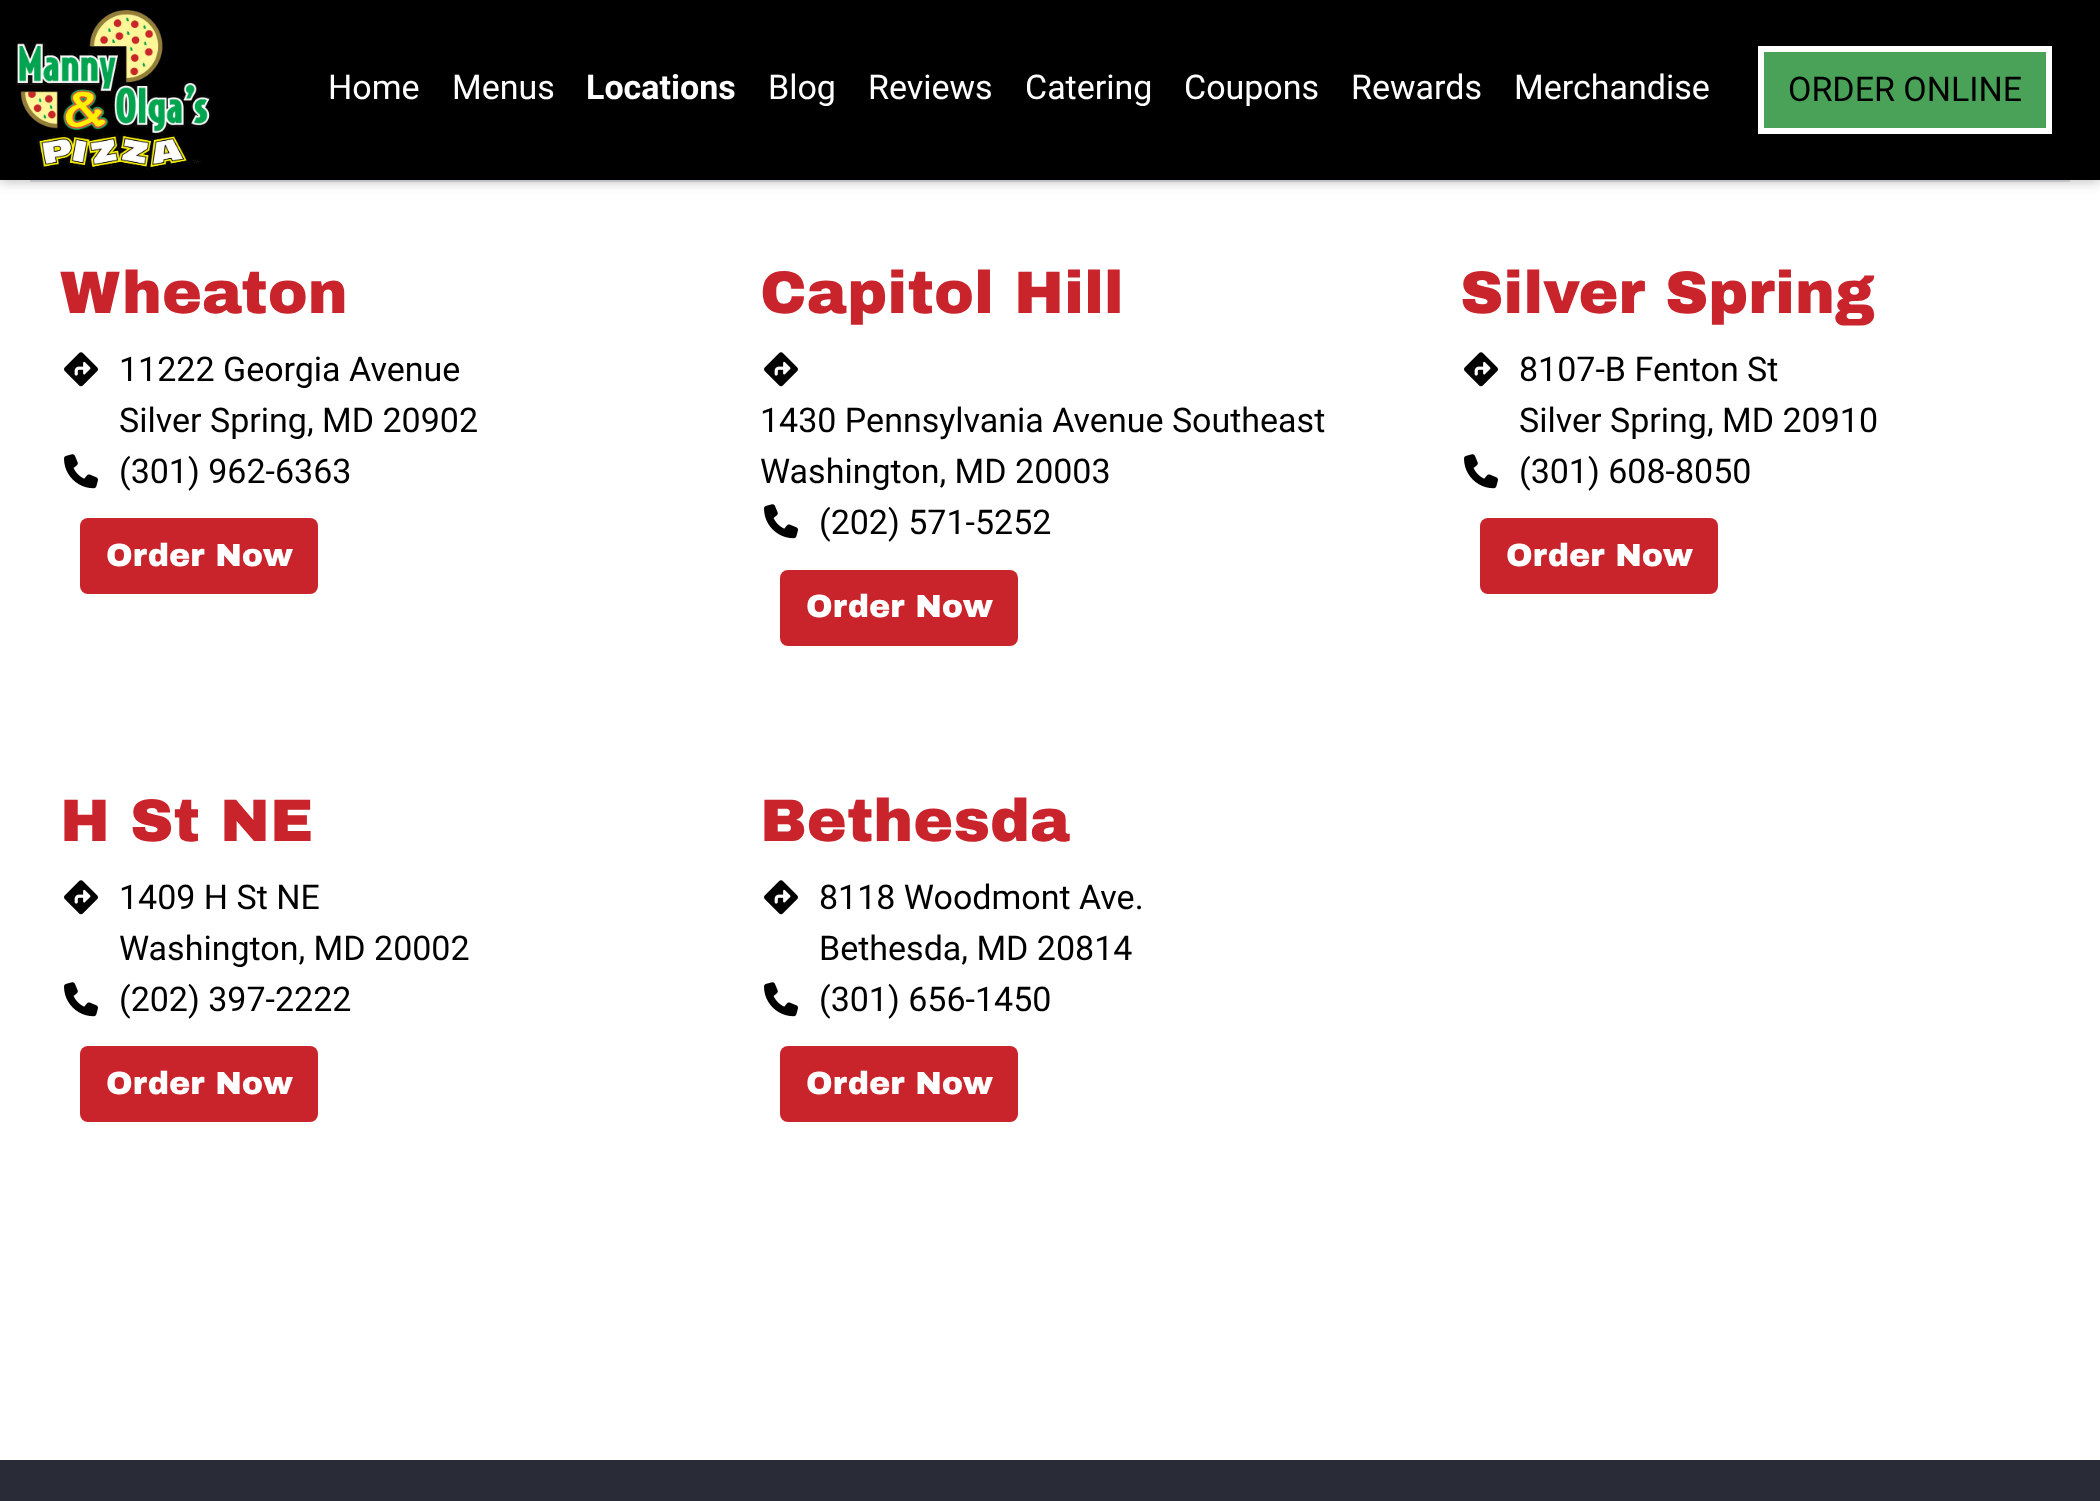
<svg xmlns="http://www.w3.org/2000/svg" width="2100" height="1501">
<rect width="100%" height="100%" fill="#fff"/>
<rect x="30" y="180" width="2040" height="2" fill="#dee2e6"/>
<rect y="2" width="2100" height="180" fill="#20212447" filter="blur(6px)"/>
<rect width="2100" height="180" fill="#000"/>
<image x="16" y="10" width="196" height="160" href="media/1.png"/>
<text x="328" y="99" style="font-family:Roboto;font-size:34px;fill:#fff">Home</text>
<text x="452" y="99" style="font-family:Roboto;font-size:34px;fill:#fff">Menus</text>
<text x="586" y="99" style="font-family:Roboto;font-size:34px;font-weight:bold;fill:#fff">Locations</text>
<text x="768" y="99" style="font-family:Roboto;font-size:34px;fill:#fff">Blog</text>
<text x="868" y="99" style="font-family:Roboto;font-size:34px;fill:#fff">Reviews</text>
<text x="1025" y="99" style="font-family:Roboto;font-size:34px;fill:#fff">Catering</text>
<text x="1184" y="99" style="font-family:Roboto;font-size:34px;fill:#fff">Coupons</text>
<text x="1351" y="99" style="font-family:Roboto;font-size:34px;fill:#fff">Rewards</text>
<text x="1514" y="99" style="font-family:Roboto;font-size:34px;fill:#fff">Merchandise</text>
<rect x="1761" y="49" width="288" height="82" fill="#49a258" stroke="#fff" stroke-width="6"/>
<text x="1788" y="101" style="font-family:Roboto;font-size:34px;fill:#000">ORDER ONLINE</text>
<text x="60" y="313" style="font-family:Archivo Black;font-size:60px;font-weight:900;fill:#c9242b">Wheaton</text>
<image x="64" y="352" width="34" height="35" href="media/2.png"/>
<text x="119" y="381" style="font-family:Roboto;font-size:34px;fill:#000">11222 Georgia Avenue</text>
<text x="119" y="432" style="font-family:Roboto;font-size:34px;fill:#000">Silver Spring, MD 20902</text>
<image x="64" y="454" width="34" height="35" href="media/3.png"/>
<text x="119" y="483" style="font-family:Roboto;font-size:34px;fill:#000">(301) 962-6363</text>
<rect x="80" y="518" width="238" height="76" rx="8" fill="#c9242b"/>
<text x="106" y="566" style="font-family:Archivo Black;font-size:32px;font-weight:900;fill:#fff">Order Now</text>
<text x="760" y="313" style="font-family:Archivo Black;font-size:60px;font-weight:900;fill:#c9242b">Capitol Hill</text>
<image x="764" y="352" width="34" height="35" href="media/2.png"/>
<text x="760" y="432" style="font-family:Roboto;font-size:34px;fill:#000">1430 Pennsylvania Avenue Southeast</text>
<text x="760" y="483" style="font-family:Roboto;font-size:34px;fill:#000">Washington, MD 20003</text>
<image x="764" y="504" width="34" height="35" href="media/3.png"/>
<text x="819" y="534" style="font-family:Roboto;font-size:34px;fill:#000">(202) 571-5252</text>
<rect x="780" y="570" width="238" height="76" rx="8" fill="#c9242b"/>
<text x="806" y="617" style="font-family:Archivo Black;font-size:32px;font-weight:900;fill:#fff">Order Now</text>
<text x="1460" y="313" style="font-family:Archivo Black;font-size:60px;font-weight:900;fill:#c9242b">Silver Spring</text>
<image x="1464" y="352" width="34" height="35" href="media/2.png"/>
<text x="1519" y="381" style="font-family:Roboto;font-size:34px;fill:#000">8107-B Fenton St</text>
<text x="1519" y="432" style="font-family:Roboto;font-size:34px;fill:#000">Silver Spring, MD 20910</text>
<image x="1464" y="454" width="34" height="35" href="media/3.png"/>
<text x="1519" y="483" style="font-family:Roboto;font-size:34px;fill:#000">(301) 608-8050</text>
<rect x="1480" y="518" width="238" height="76" rx="8" fill="#c9242b"/>
<text x="1506" y="566" style="font-family:Archivo Black;font-size:32px;font-weight:900;fill:#fff">Order Now</text>
<text x="60" y="841" style="font-family:Archivo Black;font-size:60px;font-weight:900;fill:#c9242b">H St NE</text>
<image x="64" y="880" width="34" height="35" href="media/2.png"/>
<text x="119" y="909" style="font-family:Roboto;font-size:34px;fill:#000">1409 H St NE</text>
<text x="119" y="960" style="font-family:Roboto;font-size:34px;fill:#000">Washington, MD 20002</text>
<image x="64" y="982" width="34" height="35" href="media/3.png"/>
<text x="119" y="1011" style="font-family:Roboto;font-size:34px;fill:#000">(202) 397-2222</text>
<rect x="80" y="1046" width="238" height="76" rx="8" fill="#c9242b"/>
<text x="106" y="1094" style="font-family:Archivo Black;font-size:32px;font-weight:900;fill:#fff">Order Now</text>
<text x="760" y="841" style="font-family:Archivo Black;font-size:60px;font-weight:900;fill:#c9242b">Bethesda</text>
<image x="764" y="880" width="34" height="35" href="media/2.png"/>
<text x="819" y="909" style="font-family:Roboto;font-size:34px;fill:#000">8118 Woodmont Ave.</text>
<text x="819" y="960" style="font-family:Roboto;font-size:34px;fill:#000">Bethesda, MD 20814</text>
<image x="764" y="982" width="34" height="35" href="media/3.png"/>
<text x="819" y="1011" style="font-family:Roboto;font-size:34px;fill:#000">(301) 656-1450</text>
<rect x="780" y="1046" width="238" height="76" rx="8" fill="#c9242b"/>
<text x="806" y="1094" style="font-family:Archivo Black;font-size:32px;font-weight:900;fill:#fff">Order Now</text>
<rect y="1460" width="2100" height="41" fill="#292b36"/>
</svg>
